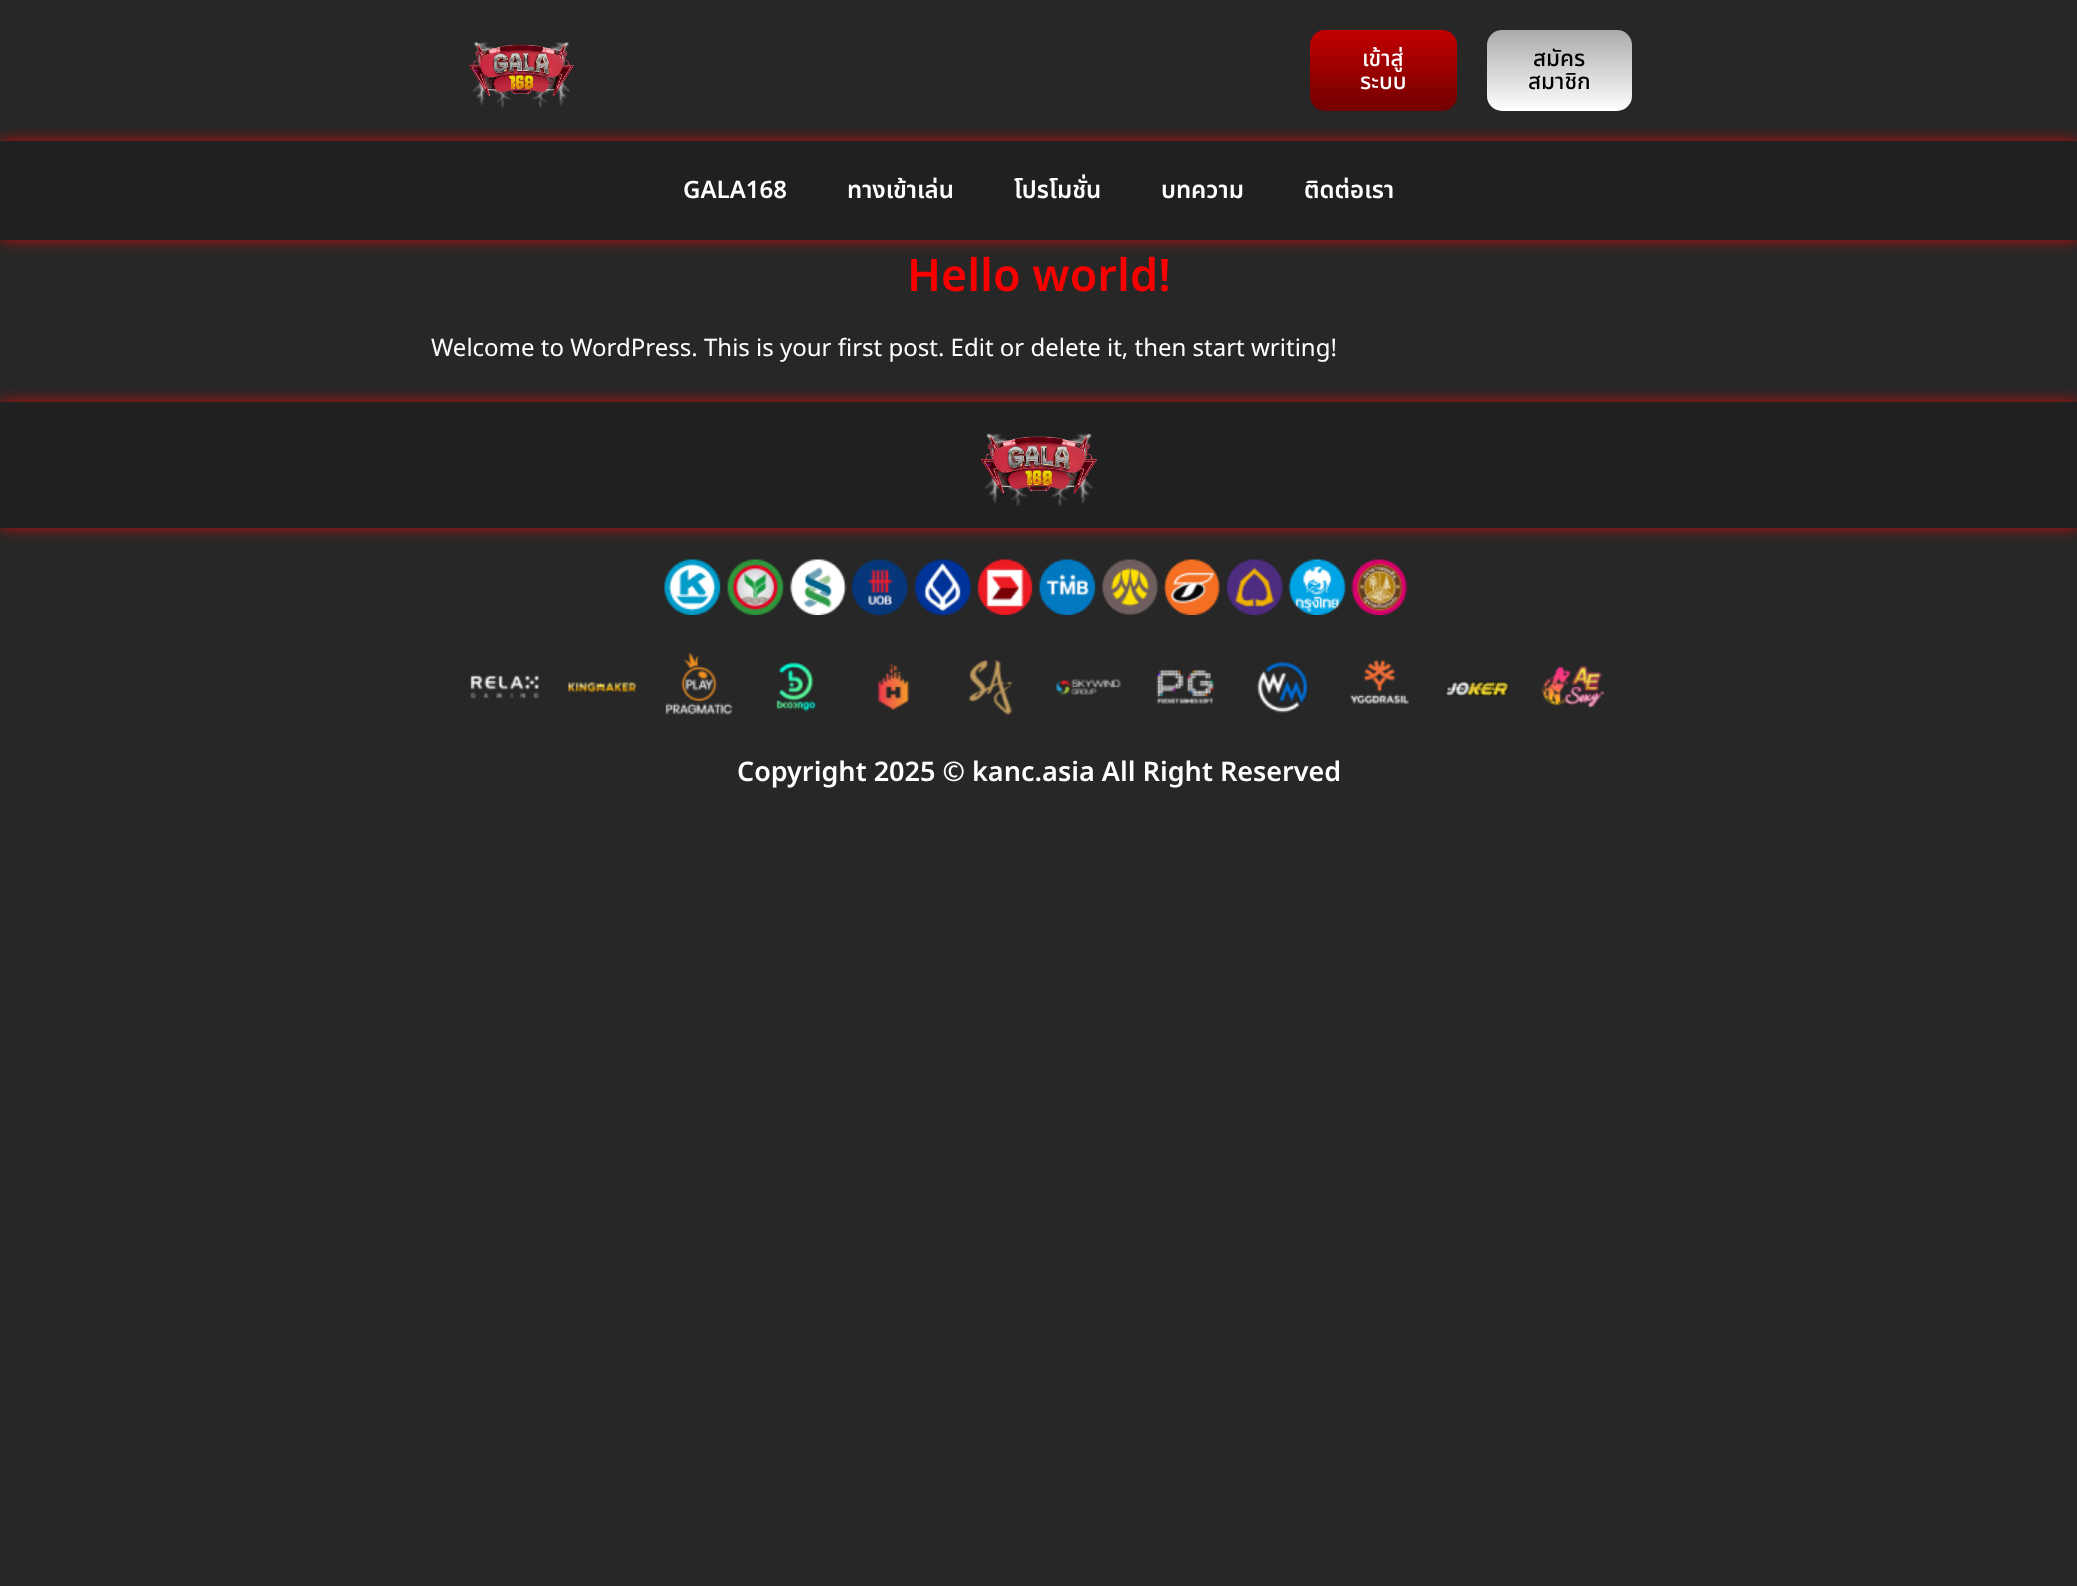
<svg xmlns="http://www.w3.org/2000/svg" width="2077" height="1586">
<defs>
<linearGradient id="g1" gradientUnits="userSpaceOnUse" x1="1383" y1="30" x2="1383" y2="111"><stop offset="0" stop-color="#c20000"/><stop offset="1" stop-color="#720000"/></linearGradient>
<linearGradient id="g2" gradientUnits="userSpaceOnUse" x1="1559" y1="30" x2="1559" y2="111"><stop offset="0" stop-color="#aaa"/><stop offset="1" stop-color="#fff"/></linearGradient>
</defs>
<rect width="100%" height="100%" fill="#272727"/>
<image x="469" y="42" width="105" height="67" href="media/1.png"/>
<rect x="1310" y="30" width="147" height="81" rx="15" fill="url(#g1)"/>
<text x="1362" y="66" style="font-family:Noto Sans Thai;font-size:22.5px;font-weight:500;fill:#fff">เข้าสู่</text>
<text x="1360" y="89" style="font-family:Noto Sans Thai;font-size:22.5px;font-weight:500;fill:#fff">ระบบ</text>
<rect x="1487" y="30" width="145" height="81" rx="15" fill="url(#g2)"/>
<text x="1533" y="66" style="font-family:Noto Sans Thai;font-size:22.5px;font-weight:500;fill:#000">สมัคร</text>
<text x="1528" y="89" style="font-family:Noto Sans Thai;font-size:22.5px;font-weight:500;fill:#000">สมาชิก</text>
<rect y="141" width="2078" height="99" fill="#ff0000b3" filter="blur(7.5px)"/>
<rect y="141" width="2077" height="99" fill="#202020"/>
<text x="683" y="198" style="font-family:Noto Sans Thai;font-size:24px;font-weight:600;fill:#fff">GALA168</text>
<text x="847" y="198" style="font-family:Noto Sans Thai;font-size:24px;font-weight:600;fill:#fff">ทางเข้าเล่น</text>
<text x="1014" y="198" style="font-family:Noto Sans Thai;font-size:24px;font-weight:600;fill:#fff">โปรโมชั่น</text>
<text x="1161" y="198" style="font-family:Noto Sans Thai;font-size:24px;font-weight:600;fill:#fff">บทความ</text>
<text x="1304" y="198" style="font-family:Noto Sans Thai;font-size:24px;font-weight:600;fill:#fff">ติดต่อเรา</text>
<text x="907" y="291" style="font-family:Noto Sans Thai;font-size:45px;font-weight:600;fill:#f80000">Hello world!</text>
<text x="431" y="356" style="font-family:Noto Sans Thai;font-size:24px;fill:#fff">Welcome to WordPress. This is your first post. Edit or delete it, then start writing!</text>
<rect y="402" width="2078" height="126" fill="#ff0000b5" filter="blur(7.5px)"/>
<rect y="402" width="2077" height="126" fill="#202020"/>
<image x="980" y="433" width="117" height="74" href="media/2.png"/>
<image x="664" y="559" width="744" height="56" href="media/3.png"/>
<image x="470" y="652" width="1135" height="64" href="media/4.png"/>
<text x="737" y="781" style="font-family:Noto Sans Thai;font-size:27px;font-weight:600;fill:#fff">Copyright 2025 © kanc.asia All Right Reserved</text>
</svg>
